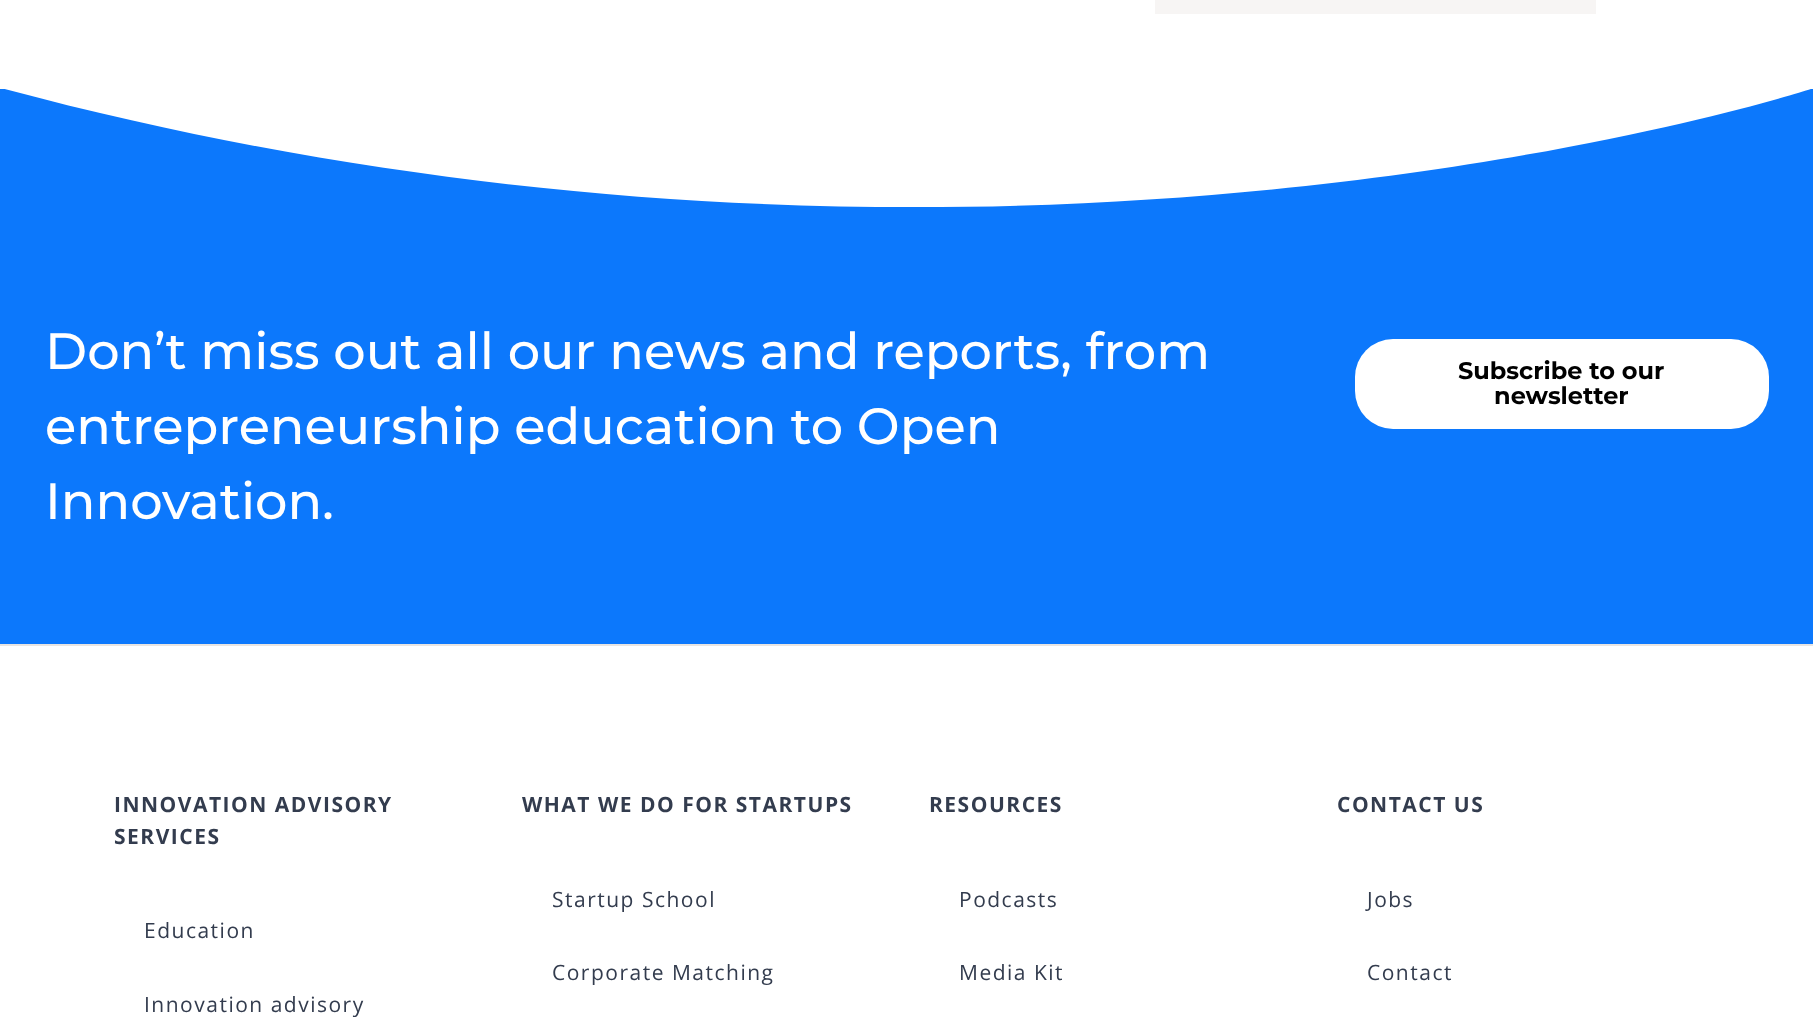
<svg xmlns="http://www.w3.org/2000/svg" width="1813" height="1018">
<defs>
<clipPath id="clip1"><rect x="2" y="89" width="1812" height="148"/></clipPath>
</defs>
<rect width="100%" height="100%" fill="#fff"/>
<rect x="1155" width="441" height="14" fill="#f7f5f4"/>
<rect y="89" width="1813" height="555" fill="#0c78fc"/>
<g clip-path="url(#clip1)">
<path d="M1 88c997 268 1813 0 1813 0z" fill="#fff"/>
</g>
<text x="45" y="369" style="font-family:Montserrat;font-size:51px;font-weight:500;fill:#fff">Don’t miss out all our news and reports, from</text>
<text x="45" y="444" style="font-family:Montserrat;font-size:51px;font-weight:500;fill:#fff">entrepreneurship education to Open</text>
<text x="45" y="519" style="font-family:Montserrat;font-size:51px;font-weight:500;fill:#fff">Innovation.</text>
<rect x="1355" y="339" width="414" height="90" rx="38" fill="#fff"/>
<text x="1458" y="379" style="font-family:Montserrat;font-size:24px;font-weight:bold;fill:#000">Subscribe to our</text>
<text x="1494" y="404" style="font-family:Montserrat;font-size:24px;font-weight:bold;fill:#000">newsletter</text>
<rect y="644" width="1813" height="2" fill="#e7e4e2"/>
<text x="114" y="812" style="font-family:Open Sans;font-size:21px;font-weight:bold;letter-spacing:1.5px;fill:#333c4e">INNOVATION ADVISORY</text>
<text x="114" y="844" style="font-family:Open Sans;font-size:21px;font-weight:bold;letter-spacing:1.5px;fill:#333c4e">SERVICES</text>
<text x="144" y="938" style="font-family:Open Sans;font-size:21px;letter-spacing:1.5px;fill:#333c4e">Education</text>
<text x="144" y="1012" style="font-family:Open Sans;font-size:21px;letter-spacing:1.5px;fill:#333c4e">Innovation advisory</text>
<text x="522" y="812" style="font-family:Open Sans;font-size:21px;font-weight:bold;letter-spacing:1.5px;fill:#333c4e">WHAT WE DO FOR STARTUPS</text>
<text x="552" y="907" style="font-family:Open Sans;font-size:21px;letter-spacing:1.5px;fill:#333c4e">Startup School</text>
<text x="552" y="980" style="font-family:Open Sans;font-size:21px;letter-spacing:1.5px;fill:#333c4e">Corporate Matching</text>
<text x="929" y="812" style="font-family:Open Sans;font-size:21px;font-weight:bold;letter-spacing:1.5px;fill:#333c4e">RESOURCES</text>
<text x="959" y="907" style="font-family:Open Sans;font-size:21px;letter-spacing:1.5px;fill:#333c4e">Podcasts</text>
<text x="959" y="980" style="font-family:Open Sans;font-size:21px;letter-spacing:1.5px;fill:#333c4e">Media Kit</text>
<text x="1337" y="812" style="font-family:Open Sans;font-size:21px;font-weight:bold;letter-spacing:1.5px;fill:#333c4e">CONTACT US</text>
<text x="1367" y="907" style="font-family:Open Sans;font-size:21px;letter-spacing:1.5px;fill:#333c4e">Jobs</text>
<text x="1367" y="980" style="font-family:Open Sans;font-size:21px;letter-spacing:1.5px;fill:#333c4e">Contact</text>
</svg>
